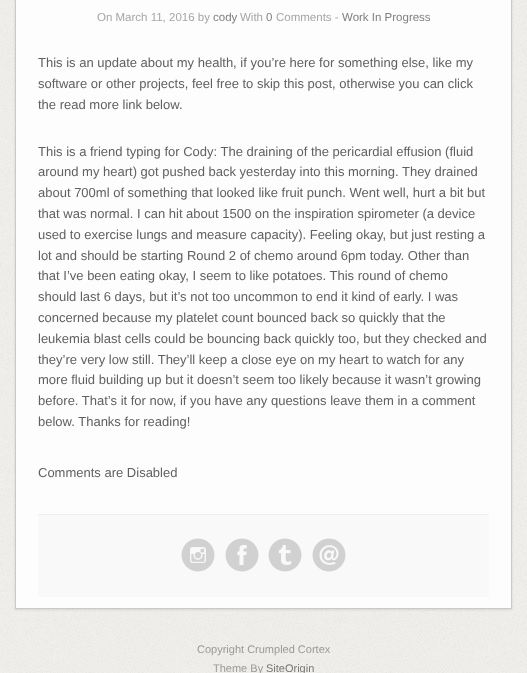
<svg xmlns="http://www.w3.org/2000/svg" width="527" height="673">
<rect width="100%" height="100%" fill="#fff"/>
<image x="0" y="0" width="527" height="673" href="media/1.png"/>
<rect x="15" y="-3" width="497" height="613" fill="#0000001a" filter="blur(1px)"/>
<rect x="15.5" y="-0.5" width="496" height="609" fill="#fdfdfd" stroke="#cbc9c7"/>
<text x="97" y="21" style="font-family:Liberation Sans;font-size:11.5px;fill:#a6a6a6">On March 11, 2016 by</text>
<text x="213" y="21" style="font-family:Liberation Sans;font-size:11.5px;fill:#808080">cody</text>
<text x="240" y="21" style="font-family:Liberation Sans;font-size:11.5px;fill:#a6a6a6">With</text>
<text x="266" y="21" style="font-family:Liberation Sans;font-size:11.5px;fill:#808080">0</text>
<text x="276" y="21" style="font-family:Liberation Sans;font-size:11.5px;fill:#a6a6a6">Comments -</text>
<text x="342" y="21" style="font-family:Liberation Sans;font-size:11.5px;fill:#808080">Work In Progress</text>
<text x="38" y="67" style="font-family:Liberation Sans;font-size:13px;fill:#606060">This is an update about my health, if you’re here for something else, like my</text>
<text x="38" y="88" style="font-family:Liberation Sans;font-size:13px;fill:#606060">software or other projects, feel free to skip this post, otherwise you can click</text>
<text x="38" y="109" style="font-family:Liberation Sans;font-size:13px;fill:#606060">the read more link below.</text>
<text x="38" y="156" style="font-family:Liberation Sans;font-size:13px;fill:#606060">This is a friend typing for Cody: The draining of the pericardial effusion (fluid</text>
<text x="38" y="176" style="font-family:Liberation Sans;font-size:13px;fill:#606060">around my heart) got pushed back yesterday into this morning. They drained</text>
<text x="38" y="197" style="font-family:Liberation Sans;font-size:13px;fill:#606060">about 700ml of something that looked like fruit punch. Went well, hurt a bit but</text>
<text x="38" y="218" style="font-family:Liberation Sans;font-size:13px;fill:#606060">that was normal. I can hit about 1500 on the inspiration spirometer (a device</text>
<text x="38" y="239" style="font-family:Liberation Sans;font-size:13px;fill:#606060">used to exercise lungs and measure capacity). Feeling okay, but just resting a</text>
<text x="38" y="260" style="font-family:Liberation Sans;font-size:13px;fill:#606060">lot and should be starting Round 2 of chemo around 6pm today. Other than</text>
<text x="38" y="280" style="font-family:Liberation Sans;font-size:13px;fill:#606060">that I’ve been eating okay, I seem to like potatoes. This round of chemo</text>
<text x="38" y="301" style="font-family:Liberation Sans;font-size:13px;fill:#606060">should last 6 days, but it’s not too uncommon to end it kind of early. I was</text>
<text x="38" y="322" style="font-family:Liberation Sans;font-size:13px;fill:#606060">concerned because my platelet count bounced back so quickly that the</text>
<text x="38" y="343" style="font-family:Liberation Sans;font-size:13px;fill:#606060">leukemia blast cells could be bouncing back quickly too, but they checked and</text>
<text x="38" y="364" style="font-family:Liberation Sans;font-size:13px;fill:#606060">they’re very low still. They’ll keep a close eye on my heart to watch for any</text>
<text x="38" y="384" style="font-family:Liberation Sans;font-size:13px;fill:#606060">more fluid building up but it doesn’t seem too likely because it wasn’t growing</text>
<text x="38" y="405" style="font-family:Liberation Sans;font-size:13px;fill:#606060">before. That’s it for now, if you have any questions leave them in a comment</text>
<text x="38" y="426" style="font-family:Liberation Sans;font-size:13px;fill:#606060">below. Thanks for reading!</text>
<text x="38" y="477" style="font-family:Liberation Sans;font-size:13px;fill:#606060">Comments are Disabled</text>
<rect x="38" y="515" width="451" height="82" fill="#f9f9f9"/>
<rect x="38" y="514" width="451" height="1" fill="#eee"/>
<image x="181" y="538" width="34" height="34" href="media/2.png"/>
<image x="225" y="538" width="34" height="34" href="media/3.png"/>
<image x="268" y="538" width="34" height="34" href="media/4.png"/>
<image x="312" y="538" width="34" height="34" href="media/5.png"/>
<text x="197" y="653" style="font-family:Liberation Sans;font-size:11px;fill:#999">Copyright Crumpled Cortex</text>
<text x="213" y="672" style="font-family:Liberation Sans;font-size:11px;fill:#999">Theme By</text>
<text x="266" y="672" style="font-family:Liberation Sans;font-size:11px;fill:#777">SiteOrigin</text>
</svg>
